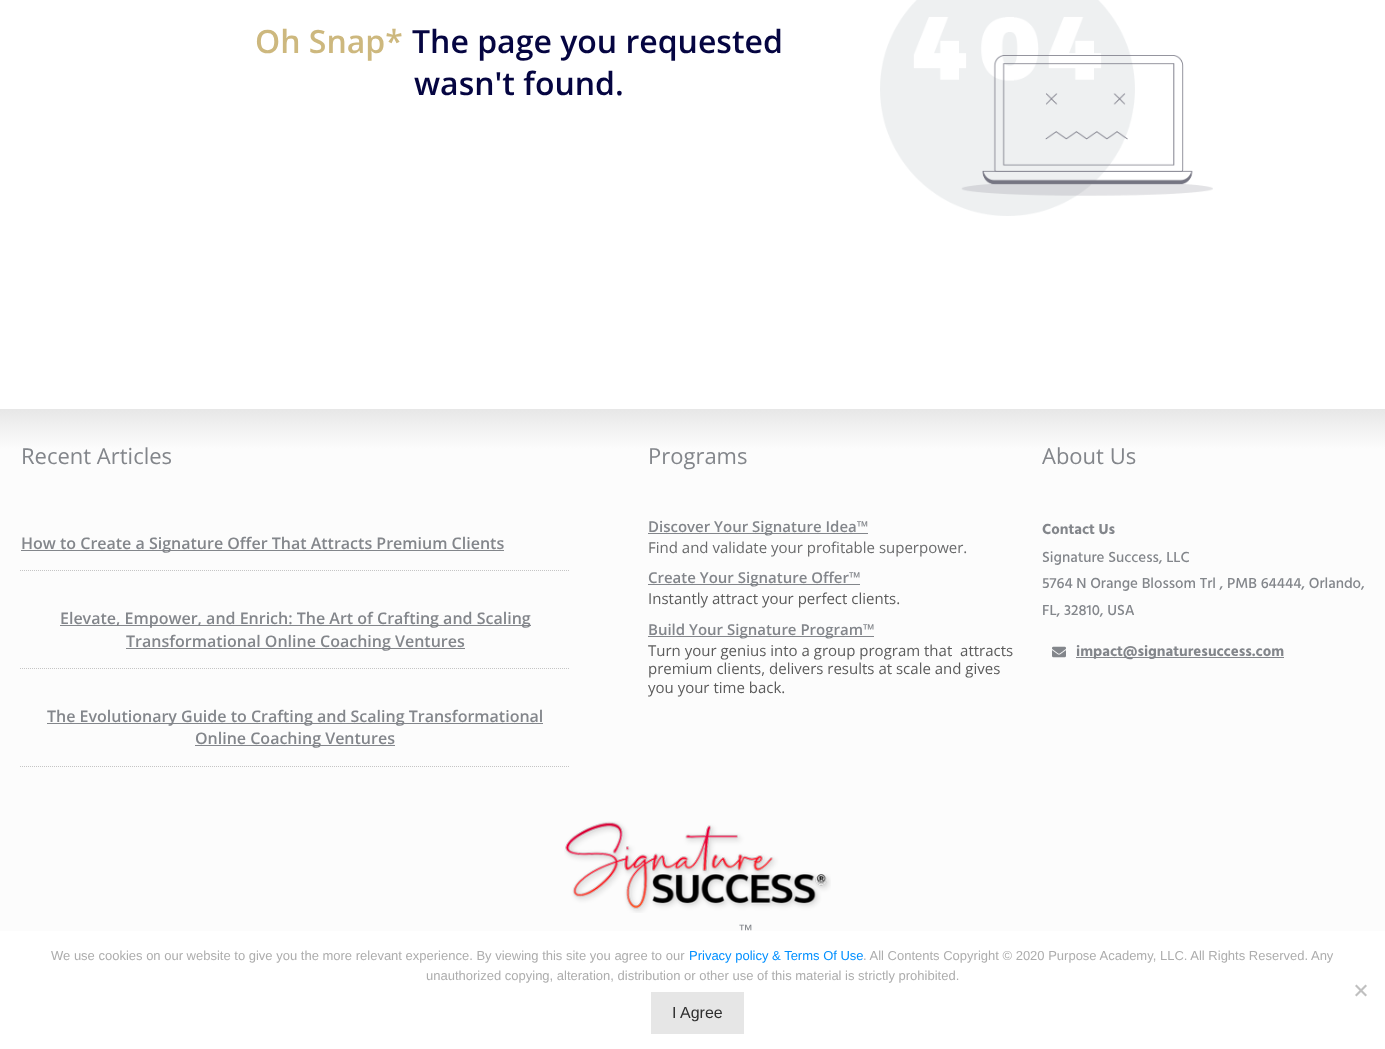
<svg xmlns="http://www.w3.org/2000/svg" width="1385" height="1049">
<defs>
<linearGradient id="g1" gradientUnits="userSpaceOnUse" x1="693" y1="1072" x2="693" y2="409"><stop offset="0.94" stop-color="#fcfcfc"/><stop offset="1" stop-color="#e7e7e7"/></linearGradient>
</defs>
<rect width="100%" height="100%" fill="#fff"/>
<text x="255" y="53" style="font-family:Open Sans;font-size:32px;font-weight:600;fill:#cdb87e">Oh Snap*</text>
<text x="412" y="53" style="font-family:Open Sans;font-size:32px;font-weight:600;fill:#050541">The page you requested</text>
<text x="414" y="95" style="font-family:Open Sans;font-size:32px;font-weight:600;fill:#050541">wasn't found.</text>
<image x="880" y="0" width="333" height="216" href="media/1.png"/>
<rect y="409" width="1385" height="522" fill="url(#g1)"/>
<text x="21" y="464" style="font-family:Open Sans;font-size:22px;fill:#83868b">Recent Articles</text>
<path d="M20 570.5h550" fill="none" stroke="#c5c5c5" stroke-dasharray="1 1"/>
<rect x="21" y="550" width="483" height="1" fill="#83868b"/>
<text x="21" y="549" style="font-family:Open Sans;font-size:16px;font-weight:600;fill:#83868b">How to Create a Signature Offer That Attracts Premium Clients</text>
<path d="M20 668.5h550" fill="none" stroke="#c5c5c5" stroke-dasharray="1 1"/>
<rect x="60" y="625" width="471" height="1" fill="#83868b"/>
<text x="60" y="624" style="font-family:Open Sans;font-size:16px;font-weight:600;fill:#83868b">Elevate, Empower, and Enrich: The Art of Crafting and Scaling</text>
<rect x="126" y="648" width="339" height="1" fill="#83868b"/>
<text x="126" y="647" style="font-family:Open Sans;font-size:16px;font-weight:600;fill:#83868b">Transformational Online Coaching Ventures</text>
<path d="M20 766.5h550" fill="none" stroke="#c5c5c5" stroke-dasharray="1 1"/>
<rect x="47" y="723" width="496" height="1" fill="#83868b"/>
<text x="47" y="722" style="font-family:Open Sans;font-size:16px;font-weight:600;fill:#83868b">The Evolutionary Guide to Crafting and Scaling Transformational</text>
<rect x="195" y="745" width="200" height="1" fill="#83868b"/>
<text x="195" y="744" style="font-family:Open Sans;font-size:16px;font-weight:600;fill:#83868b">Online Coaching Ventures</text>
<text x="648" y="464" style="font-family:Open Sans;font-size:22px;fill:#83868b">Programs</text>
<rect x="648" y="533" width="220" height="1" fill="#83868b"/>
<text x="648" y="532" style="font-family:Open Sans;font-size:15px;font-weight:600;fill:#83868b">Discover Your Signature Idea™</text>
<text x="648" y="553" style="font-family:Open Sans;font-size:15px;fill:#6a6b6c">Find and validate your profitable superpower.</text>
<rect x="648" y="584" width="212" height="1" fill="#83868b"/>
<text x="648" y="583" style="font-family:Open Sans;font-size:15px;font-weight:600;fill:#83868b">Create Your Signature Offer™</text>
<text x="648" y="604" style="font-family:Open Sans;font-size:15px;fill:#5b5b5b">Instantly attract your perfect clients.</text>
<rect x="648" y="636" width="226" height="1" fill="#83868b"/>
<text x="648" y="635" style="font-family:Open Sans;font-size:15px;font-weight:600;fill:#83868b">Build Your Signature Program™</text>
<text x="648" y="656" style="font-family:Open Sans;font-size:15px;fill:#5b5b5b" xml:space="preserve">Turn your genius into a group program that  attracts</text>
<text x="648" y="674" style="font-family:Open Sans;font-size:15px;fill:#5b5b5b">premium clients, delivers results at scale and gives</text>
<text x="648" y="693" style="font-family:Open Sans;font-size:15px;fill:#5b5b5b">you your time back.</text>
<text x="1042" y="464" style="font-family:Open Sans;font-size:22px;fill:#83868b">About Us</text>
<text x="1042" y="534" style="font-family:Hind;font-size:15px;font-weight:bold;fill:#83868b">Contact Us</text>
<text x="1042" y="562" style="font-family:Hind;font-size:15px;font-weight:500;fill:#83868b">Signature Success, LLC</text>
<text x="1042" y="588" style="font-family:Hind;font-size:15px;font-weight:500;fill:#83868b">5764 N Orange Blossom Trl , PMB 64444, Orlando,</text>
<text x="1042" y="615" style="font-family:Hind;font-size:15px;font-weight:500;fill:#83868b">FL, 32810, USA</text>
<image x="1052" y="646" width="14" height="12" href="media/2.png"/>
<rect x="1076" y="657" width="208" height="1" fill="#83868b"/>
<text x="1076" y="656" style="font-family:Hind;font-size:15px;font-weight:bold;fill:#83868b">impact@signaturesuccess.com</text>
<image x="564" y="821" width="267" height="92" href="media/3.png"/>
<text x="738" y="935" style="font-family:Liberation Sans;font-size:15px;font-style:italic;fill:#83868b">™</text>
<text x="51" y="960" style="font-family:Liberation Sans;font-size:13px;fill:#adadad">We use cookies on our website to give you the more relevant experience. By viewing this site you agree to our</text>
<text x="689" y="960" style="font-family:Liberation Sans;font-size:13px;fill:#008fff">Privacy policy &amp; Terms Of Use</text>
<text x="863" y="960" style="font-family:Liberation Sans;font-size:13px;fill:#adadad">. All Contents Copyright © 2020 Purpose Academy, LLC. All Rights Reserved. Any</text>
<text x="426" y="980" style="font-family:Liberation Sans;font-size:13px;fill:#adadad">unauthorized copying, alteration, distribution or other use of this material is strictly prohibited.</text>
<path d="M1365.5 984.5l1.5 1.5l-10.5 10.5l-1.5-1.5z" fill="#c0c0c0"/>
<path d="M1355 986l1.5-1.5l10.5 10.5l-1.5 1.5z" fill="#c0c0c0"/>
<rect x="651" y="992" width="93" height="42" fill="#e6e6e6"/>
<text x="672" y="1018" style="font-family:Liberation Sans;font-size:16px;fill:#2e2e2e">I Agree</text>
</svg>
